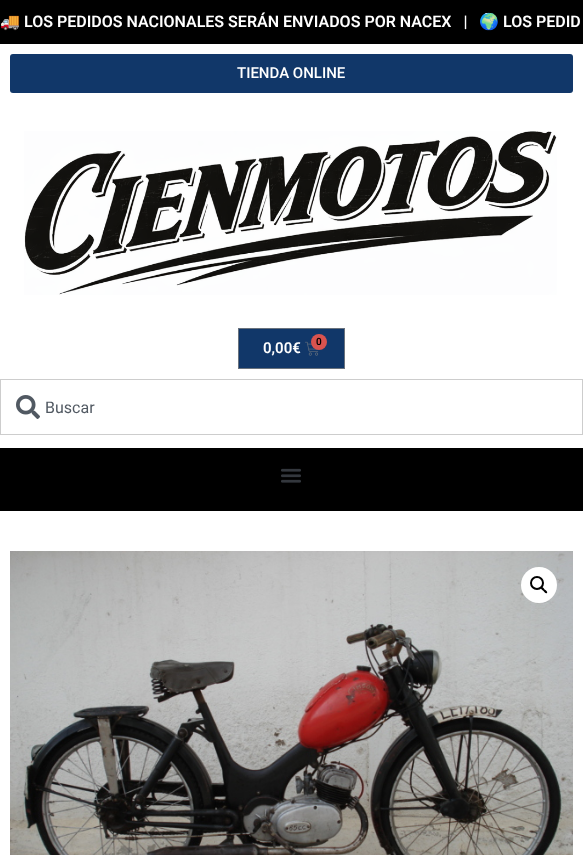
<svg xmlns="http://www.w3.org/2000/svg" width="583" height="855">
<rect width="100%" height="100%" fill="#fff"/>
<rect width="583" height="44" fill="#000"/>
<text x="0" y="27" style="font-family:Noto Color Emoji;font-size:16px;fill:#fff">🚚</text>
<text x="24" y="27" style="font-family:Roboto;font-size:16px;font-weight:600;fill:#fff" xml:space="preserve">LOS PEDIDOS NACIONALES SERÁN ENVIADOS POR NACEX   |</text>
<text x="479" y="27" style="font-family:Noto Color Emoji;font-size:16px;fill:#fff">🌍</text>
<text x="503" y="27" style="font-family:Roboto;font-size:16px;font-weight:600;fill:#fff">LOS PEDID</text>
<rect x="10" y="54" width="563" height="39" rx="3" fill="#113769"/>
<text x="237" y="78" style="font-family:Roboto;font-size:15px;font-weight:500;fill:#fff">TIENDA ONLINE</text>
<image x="24" y="131" width="533" height="164" href="media/1.png"/>
<rect x="238.5" y="328.5" width="106" height="40" fill="#113769" stroke="#69727d"/>
<text x="263" y="353" style="font-family:Roboto;font-size:15px;font-weight:600;fill:#fff">0,00€</text>
<image x="305" y="341" width="14" height="15" href="media/2.png"/>
<circle cx="319" cy="342" r="8" fill="#d9534f"/>
<text x="316" y="345" style="font-family:Roboto;font-size:10px;font-weight:600;fill:#000">0</text>
<rect x="0.5" y="379.5" width="582" height="55" fill="none" stroke="#cdcdcd"/>
<image x="16" y="395" width="24" height="24" href="media/3.png"/>
<text x="45" y="413" style="font-family:Roboto;font-size:16px;fill:#515962">Buscar</text>
<rect y="448" width="583" height="63" fill="#000"/>
<image x="281" y="468" width="20" height="15" href="media/4.png"/>
<image x="10" y="551" width="563" height="304" href="media/5.png"/>
<circle cx="539" cy="585" r="18" fill="#fff"/>
<circle cx="537" cy="583" r="6" fill="none" stroke="#000" stroke-width="2"/>
<path d="M541 587.5c1.5-1.5 3 1.5 3.5 2c1 .5 3.5 2.5 2.5 3.5c-1.5 1-3-1.5-3.5-2c-1-1-3.5-2.5-2.5-3.5z" fill="#000"/>
</svg>
